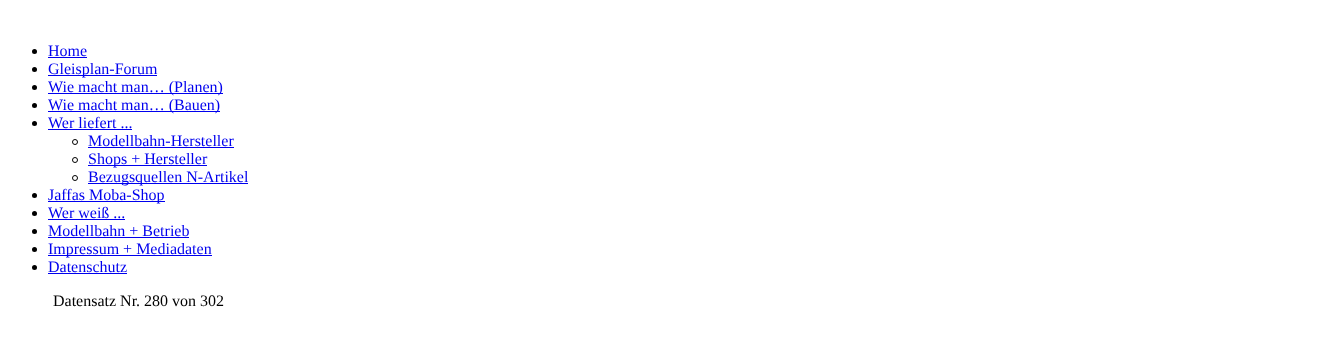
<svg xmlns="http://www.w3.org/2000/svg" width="1330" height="337">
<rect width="100%" height="100%" fill="#fff"/>
<circle cx="34.5" cy="51.5" r="2.5" fill="#000"/>
<text x="48" y="56" style="font-family:Liberation Serif;font-size:16px;fill:#00e">Home</text>
<rect x="48" y="57" width="39" height="1" fill="#00e"/>
<circle cx="34.5" cy="69.5" r="2.5" fill="#000"/>
<rect x="48" y="75" width="109" height="1" fill="#00e"/>
<text x="48" y="74" style="font-family:Liberation Serif;font-size:16px;fill:#00e">Gleisplan-Forum</text>
<circle cx="34.5" cy="87.5" r="2.5" fill="#000"/>
<rect x="48" y="93" width="175" height="1" fill="#00e"/>
<text x="48" y="92" style="font-family:Liberation Serif;font-size:16px;fill:#00e">Wie macht man… (Planen)</text>
<circle cx="34.5" cy="105.5" r="2.5" fill="#000"/>
<rect x="48" y="111" width="172" height="1" fill="#00e"/>
<text x="48" y="110" style="font-family:Liberation Serif;font-size:16px;fill:#00e">Wie macht man… (Bauen)</text>
<circle cx="34.5" cy="123.5" r="2.5" fill="#000"/>
<text x="48" y="128" style="font-family:Liberation Serif;font-size:16px;fill:#00e">Wer liefert ...</text>
<rect x="48" y="129" width="84" height="1" fill="#00e"/>
<circle cx="75" cy="142" r="2.5" fill="none" stroke="#000"/>
<text x="88" y="146" style="font-family:Liberation Serif;font-size:16px;fill:#00e">Modellbahn-Hersteller</text>
<rect x="88" y="147" width="146" height="1" fill="#00e"/>
<circle cx="75" cy="160" r="2.5" fill="none" stroke="#000"/>
<rect x="88" y="165" width="119" height="1" fill="#00e"/>
<text x="88" y="164" style="font-family:Liberation Serif;font-size:16px;fill:#00e">Shops + Hersteller</text>
<circle cx="75" cy="178" r="2.5" fill="none" stroke="#000"/>
<rect x="88" y="183" width="160" height="1" fill="#00e"/>
<text x="88" y="182" style="font-family:Liberation Serif;font-size:16px;fill:#00e">Bezugsquellen N-Artikel</text>
<circle cx="34.5" cy="195.5" r="2.5" fill="#000"/>
<rect x="48" y="201" width="117" height="1" fill="#00e"/>
<text x="48" y="200" style="font-family:Liberation Serif;font-size:16px;fill:#00e">Jaffas Moba-Shop</text>
<circle cx="34.5" cy="213.5" r="2.5" fill="#000"/>
<text x="48" y="218" style="font-family:Liberation Serif;font-size:16px;fill:#00e">Wer weiß ...</text>
<rect x="48" y="219" width="77" height="1" fill="#00e"/>
<circle cx="34.5" cy="231.5" r="2.5" fill="#000"/>
<text x="48" y="236" style="font-family:Liberation Serif;font-size:16px;fill:#00e">Modellbahn + Betrieb</text>
<rect x="48" y="237" width="141" height="1" fill="#00e"/>
<circle cx="34.5" cy="249.5" r="2.5" fill="#000"/>
<rect x="48" y="255" width="164" height="1" fill="#00e"/>
<text x="48" y="254" style="font-family:Liberation Serif;font-size:16px;fill:#00e">Impressum + Mediadaten</text>
<circle cx="34.5" cy="267.5" r="2.5" fill="#000"/>
<text x="48" y="272" style="font-family:Liberation Serif;font-size:16px;fill:#00e">Datenschutz</text>
<rect x="48" y="273" width="79" height="1" fill="#00e"/>
<text x="53" y="306" style="font-family:Liberation Serif;font-size:16px;fill:#000">Datensatz Nr. 280 von 302</text>
</svg>
